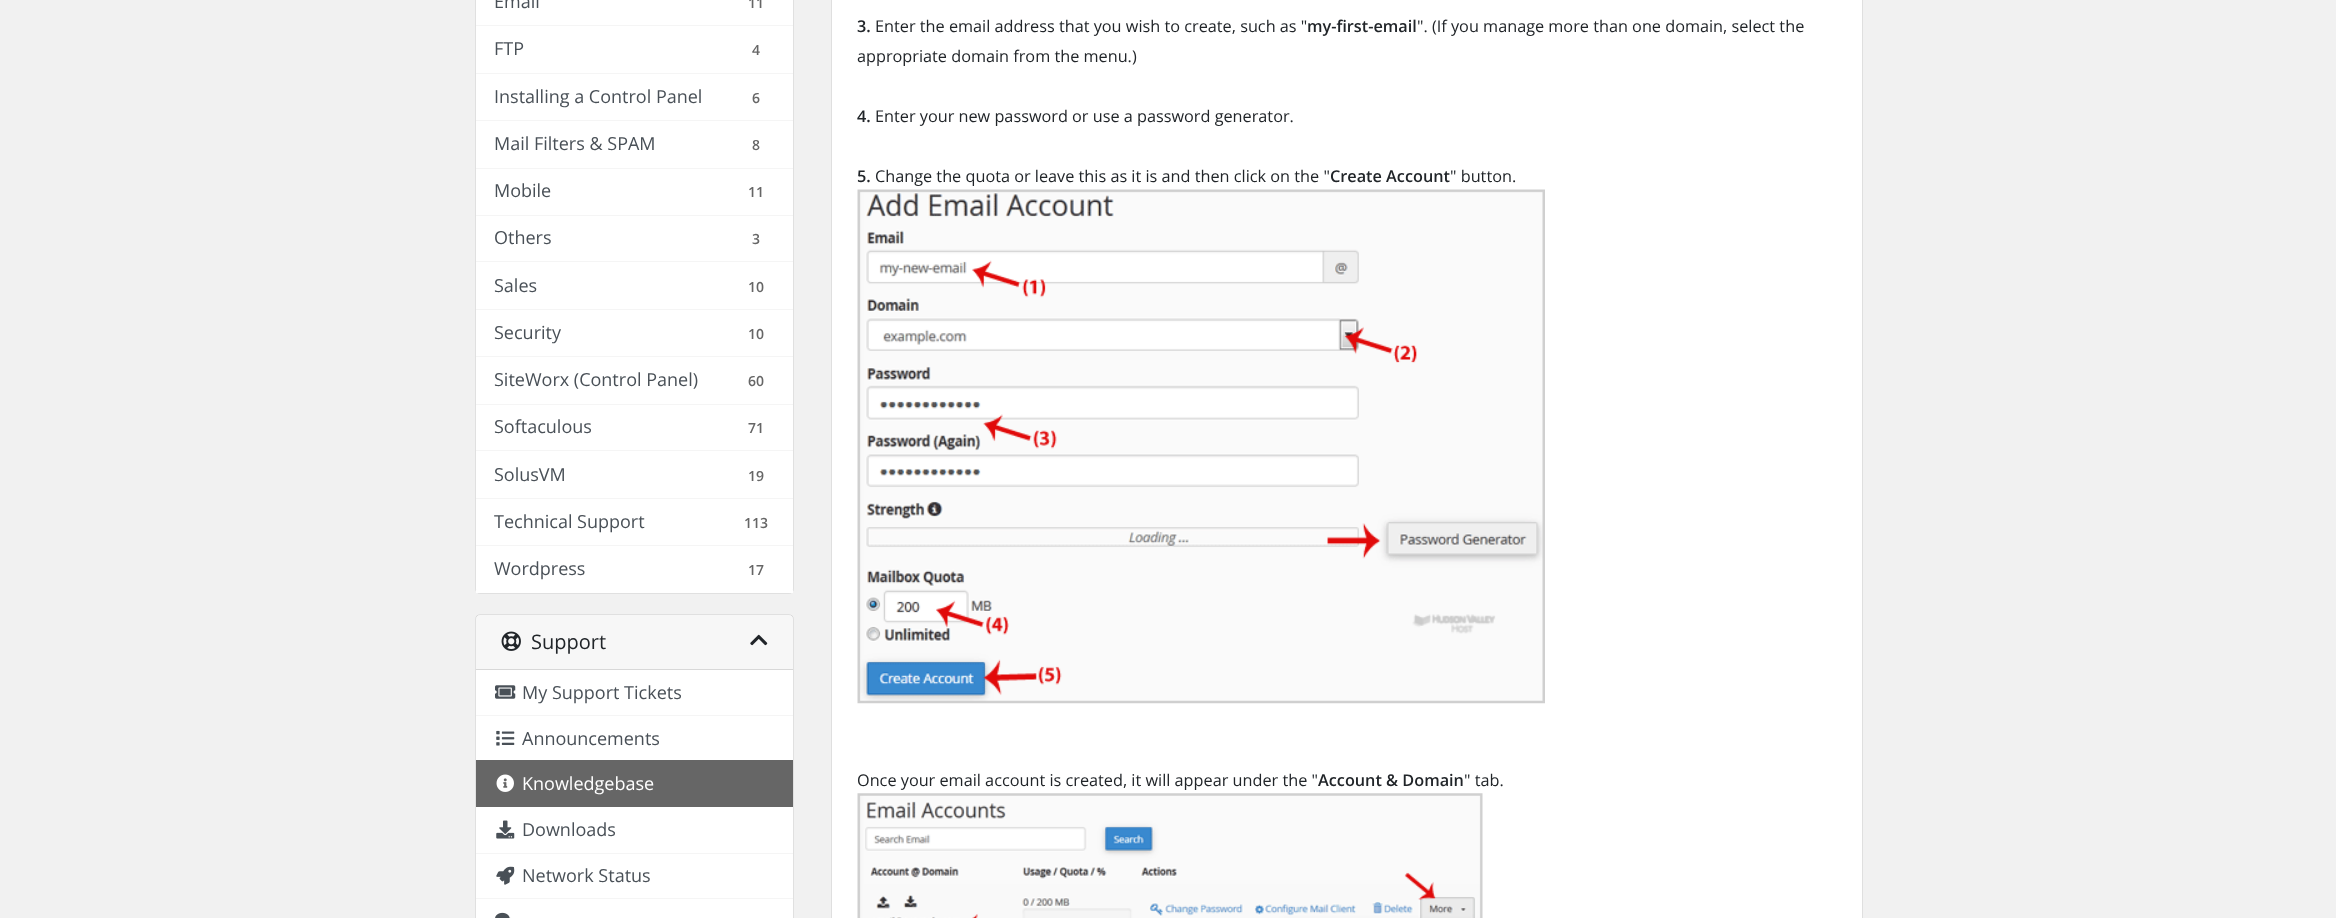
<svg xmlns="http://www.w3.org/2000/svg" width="2336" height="918">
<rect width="100%" height="100%" fill="#f1f1f1"/>
<rect x="475" y="-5" width="319" height="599" rx="5" fill="#fff"/>
<rect x="475.5" y="-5.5" width="318" height="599" rx="4.5" fill="none" stroke="#0000001f"/>
<rect x="476" y="25" width="317" height="1" fill="#f5f5f5"/>
<text x="494" y="8" style="font-family:Open Sans;font-size:18px;fill:#495057">Email</text>
<text x="748" y="8" style="font-family:Open Sans;font-size:14px;font-weight:600;fill:#666">11</text>
<rect x="476" y="73" width="317" height="1" fill="#f5f5f5"/>
<text x="494" y="55" style="font-family:Open Sans;font-size:18px;fill:#495057">FTP</text>
<text x="752" y="55" style="font-family:Open Sans;font-size:14px;font-weight:600;fill:#666">4</text>
<rect x="476" y="120" width="317" height="1" fill="#f5f5f5"/>
<text x="494" y="103" style="font-family:Open Sans;font-size:18px;fill:#495057">Installing a Control Panel</text>
<text x="752" y="103" style="font-family:Open Sans;font-size:14px;font-weight:600;fill:#666">6</text>
<rect x="476" y="168" width="317" height="1" fill="#f5f5f5"/>
<text x="494" y="150" style="font-family:Open Sans;font-size:18px;fill:#495057">Mail Filters &amp; SPAM</text>
<text x="752" y="150" style="font-family:Open Sans;font-size:14px;font-weight:600;fill:#666">8</text>
<rect x="476" y="215" width="317" height="1" fill="#f5f5f5"/>
<text x="494" y="197" style="font-family:Open Sans;font-size:18px;fill:#495057">Mobile</text>
<text x="748" y="197" style="font-family:Open Sans;font-size:14px;font-weight:600;fill:#666">11</text>
<rect x="476" y="261" width="317" height="1" fill="#f5f5f5"/>
<text x="494" y="244" style="font-family:Open Sans;font-size:18px;fill:#495057">Others</text>
<text x="752" y="244" style="font-family:Open Sans;font-size:14px;font-weight:600;fill:#666">3</text>
<rect x="476" y="309" width="317" height="1" fill="#f5f5f5"/>
<text x="494" y="292" style="font-family:Open Sans;font-size:18px;fill:#495057">Sales</text>
<text x="748" y="292" style="font-family:Open Sans;font-size:14px;font-weight:600;fill:#666">10</text>
<rect x="476" y="356" width="317" height="1" fill="#f5f5f5"/>
<text x="494" y="339" style="font-family:Open Sans;font-size:18px;fill:#495057">Security</text>
<text x="748" y="339" style="font-family:Open Sans;font-size:14px;font-weight:600;fill:#666">10</text>
<rect x="476" y="404" width="317" height="1" fill="#f5f5f5"/>
<text x="494" y="386" style="font-family:Open Sans;font-size:18px;fill:#495057">SiteWorx (Control Panel)</text>
<text x="748" y="386" style="font-family:Open Sans;font-size:14px;font-weight:600;fill:#666">60</text>
<rect x="476" y="450" width="317" height="1" fill="#f5f5f5"/>
<text x="494" y="433" style="font-family:Open Sans;font-size:18px;fill:#495057">Softaculous</text>
<text x="748" y="433" style="font-family:Open Sans;font-size:14px;font-weight:600;fill:#666">71</text>
<rect x="476" y="498" width="317" height="1" fill="#f5f5f5"/>
<text x="494" y="481" style="font-family:Open Sans;font-size:18px;fill:#495057">SolusVM</text>
<text x="748" y="481" style="font-family:Open Sans;font-size:14px;font-weight:600;fill:#666">19</text>
<rect x="476" y="545" width="317" height="1" fill="#f5f5f5"/>
<text x="494" y="528" style="font-family:Open Sans;font-size:18px;fill:#495057">Technical Support</text>
<text x="744" y="528" style="font-family:Open Sans;font-size:14px;font-weight:600;fill:#666">113</text>
<rect x="476" y="590" width="317" height="3" fill="#fff"/>
<text x="494" y="575" style="font-family:Open Sans;font-size:18px;fill:#495057">Wordpress</text>
<text x="748" y="575" style="font-family:Open Sans;font-size:14px;font-weight:600;fill:#666">17</text>
<rect x="475" y="614" width="319" height="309" rx="5" fill="#fff"/>
<rect x="475.5" y="614.5" width="318" height="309" rx="4.5" fill="none" stroke="#0000001f"/>
<rect x="476" y="615" width="317" height="54" fill="#00000008"/>
<rect x="476" y="669" width="317" height="1" fill="#d8d8d8"/>
<image x="501" y="631" width="20" height="20" href="media/1.png"/>
<text x="531" y="649" style="font-family:Open Sans;font-size:20px;fill:#212529">Support</text>
<image x="750" y="634" width="18" height="12" href="media/2.png"/>
<rect x="476" y="715" width="317" height="1" fill="#f5f5f5"/>
<image x="495" y="685" width="21" height="14" href="media/3.png"/>
<text x="522" y="699" style="font-family:Open Sans;font-size:18px;fill:#495057">My Support Tickets</text>
<image x="496" y="730" width="19" height="16" href="media/4.png"/>
<text x="522" y="745" style="font-family:Open Sans;font-size:18px;fill:#495057">Announcements</text>
<rect x="476" y="760" width="317" height="47" fill="#666"/>
<image x="496" y="774" width="18" height="18" href="media/5.png"/>
<text x="522" y="790" style="font-family:Open Sans;font-size:18px;fill:#fff">Knowledgebase</text>
<rect x="476" y="853" width="317" height="1" fill="#f5f5f5"/>
<image x="496" y="820" width="19" height="19" href="media/6.png"/>
<text x="522" y="836" style="font-family:Open Sans;font-size:18px;fill:#495057">Downloads</text>
<rect x="476" y="898" width="317" height="1" fill="#f5f5f5"/>
<image x="496" y="866" width="19" height="19" href="media/7.png"/>
<text x="522" y="882" style="font-family:Open Sans;font-size:18px;fill:#495057">Network Status</text>
<image x="495" y="912" width="16" height="6" href="media/8.png"/>
<rect x="831.5" y="-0.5" width="1031" height="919" fill="#fff" stroke="#dfdfdf"/>
<text x="857" y="32" style="font-family:Open Sans;font-size:16.25px;font-weight:600;fill:#212529">3.</text>
<text x="875" y="32" style="font-family:Open Sans;font-size:16.25px;fill:#212529">Enter the email address that you wish to create, such as "</text>
<text x="1307" y="32" style="font-family:Open Sans;font-size:16.25px;font-weight:600;fill:#212529">my-first-email</text>
<text x="1417" y="32" style="font-family:Open Sans;font-size:16.25px;fill:#212529">". (If you manage more than one domain, select the</text>
<text x="857" y="62" style="font-family:Open Sans;font-size:16.25px;fill:#212529">appropriate domain from the menu.)</text>
<text x="857" y="122" style="font-family:Open Sans;font-size:16.25px;font-weight:600;fill:#212529">4.</text>
<text x="875" y="122" style="font-family:Open Sans;font-size:16.25px;fill:#212529">Enter your new password or use a password generator.</text>
<text x="857" y="182" style="font-family:Open Sans;font-size:16.25px;font-weight:600;fill:#212529">5.</text>
<text x="875" y="182" style="font-family:Open Sans;font-size:16.25px;fill:#212529">Change the quota or leave this as it is and then click on the "</text>
<text x="1330" y="182" style="font-family:Open Sans;font-size:16.25px;font-weight:600;fill:#212529">Create Account</text>
<text x="1450" y="182" style="font-family:Open Sans;font-size:16.25px;fill:#212529">" button.</text>
<image x="857" y="189" width="688" height="515" href="media/9.png"/>
<text x="857" y="786" style="font-family:Open Sans;font-size:16.25px;fill:#212529">Once your email account is created, it will appear under the "</text>
<text x="1318" y="786" style="font-family:Open Sans;font-size:16.25px;font-weight:600;fill:#212529">Account &amp; Domain</text>
<text x="1464" y="786" style="font-family:Open Sans;font-size:16.25px;fill:#212529">" tab.</text>
<image x="857" y="793" width="626" height="125" href="media/10.png"/>
</svg>
